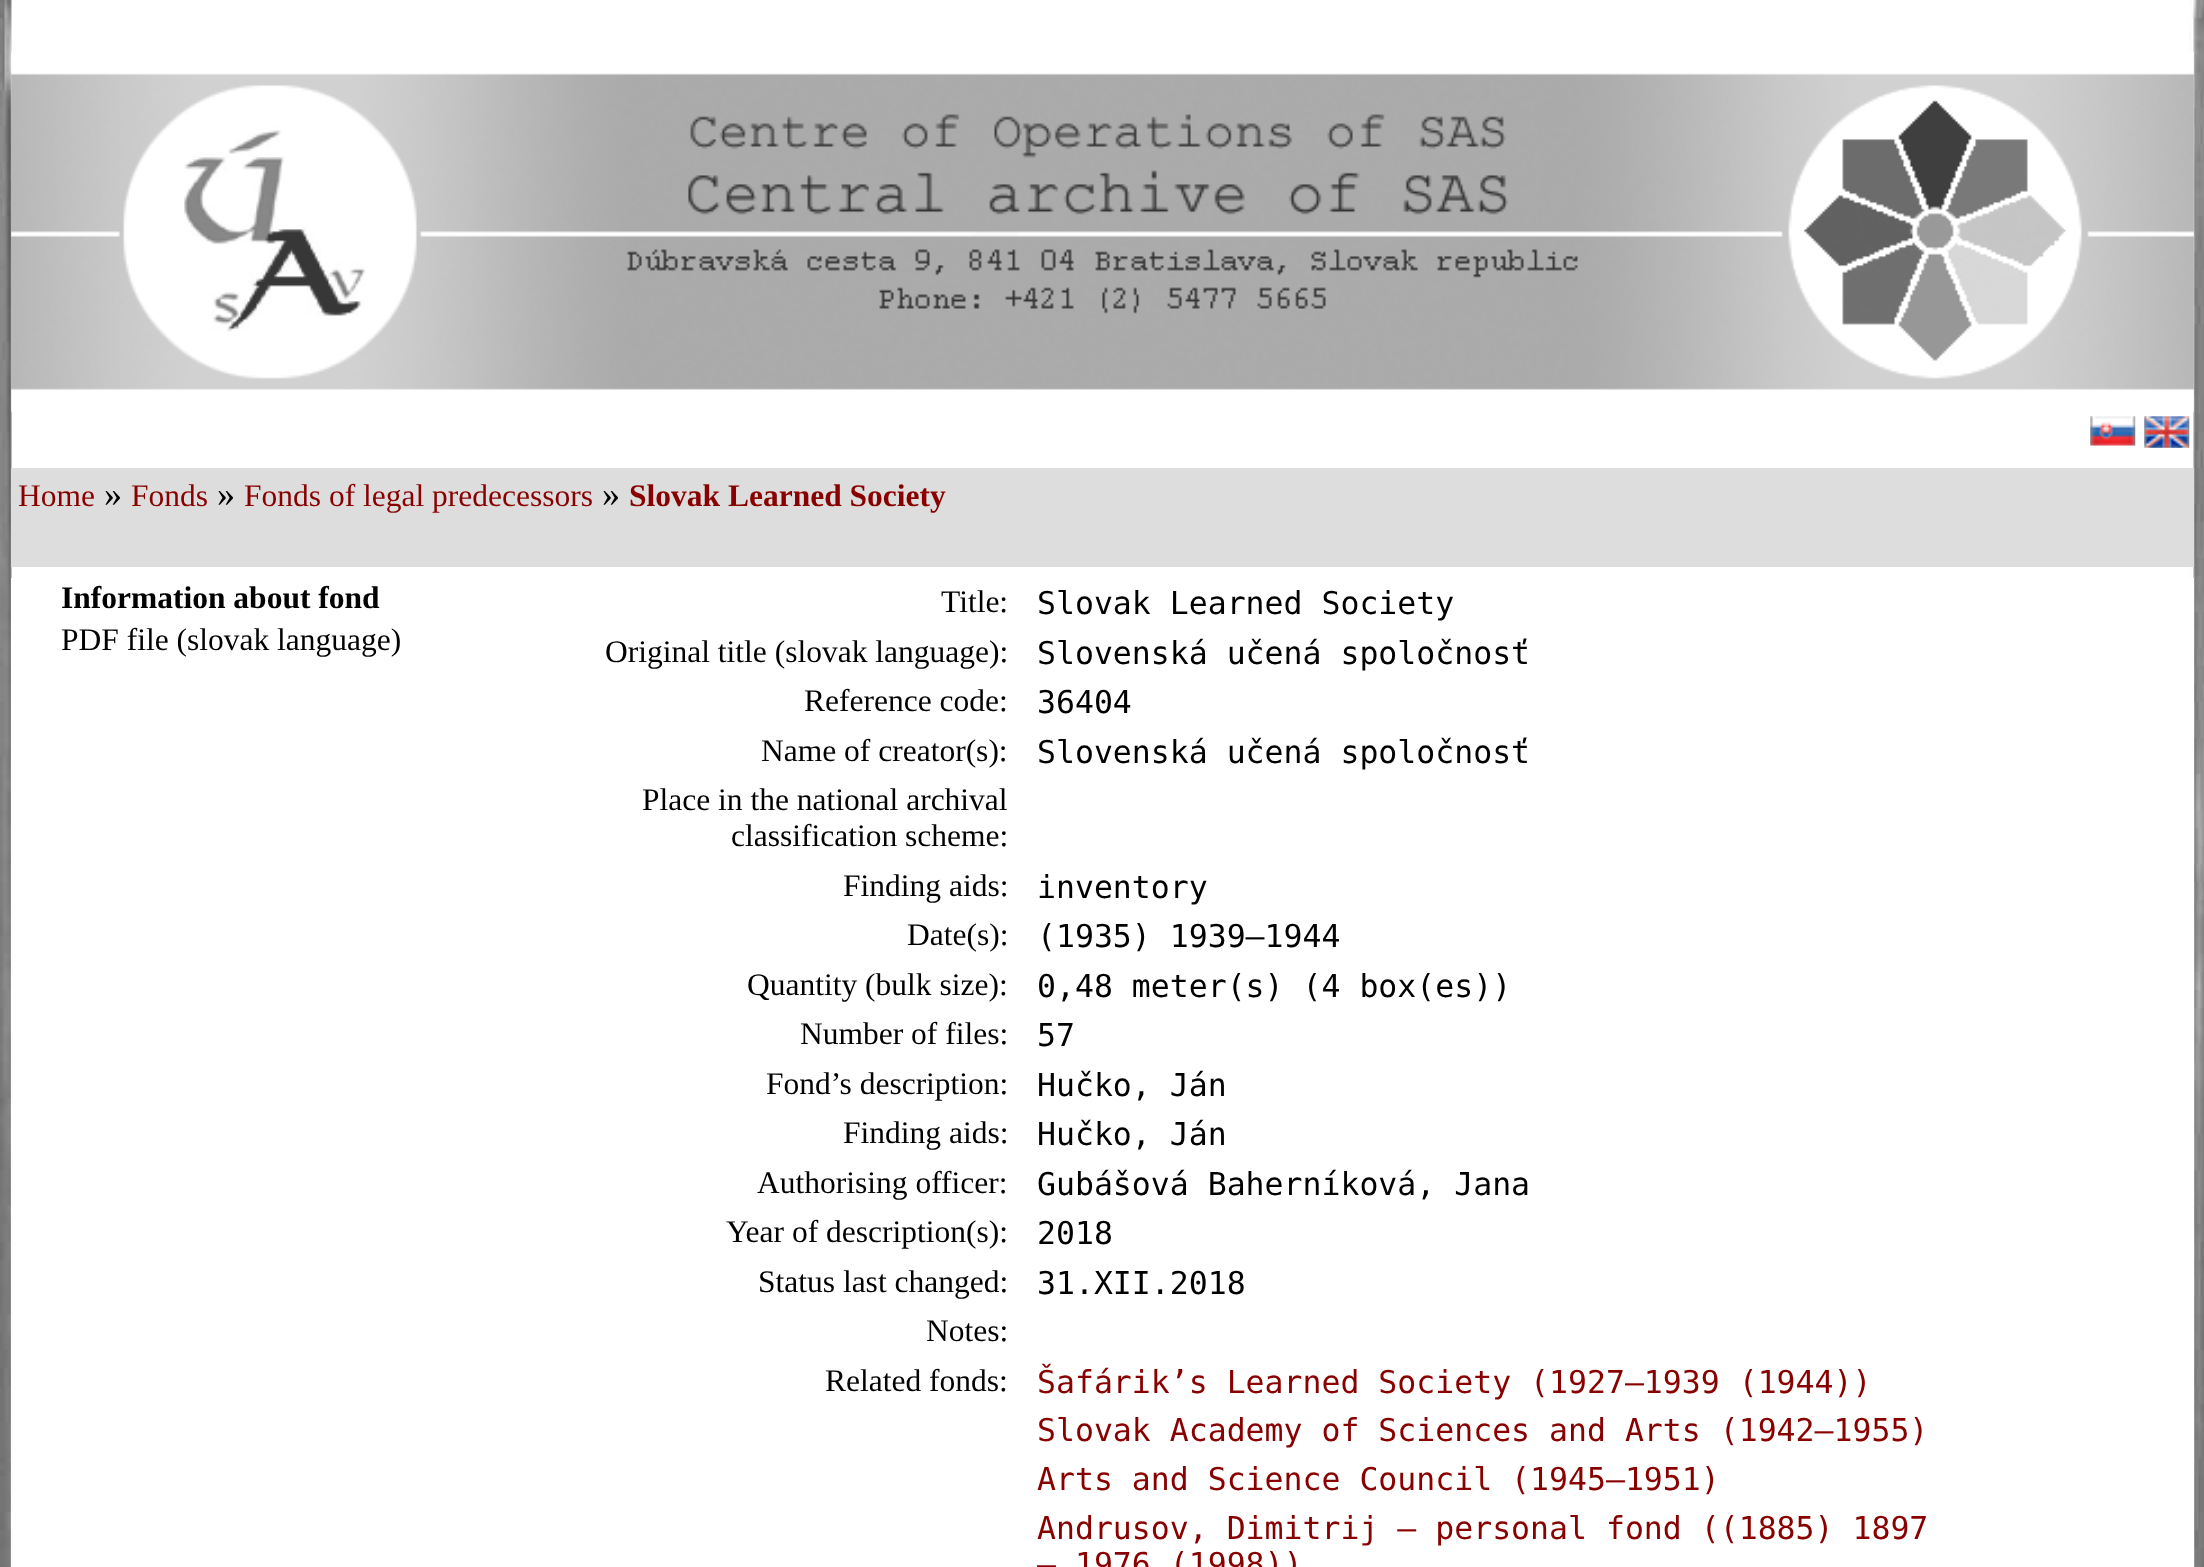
<svg xmlns="http://www.w3.org/2000/svg" width="2204" height="1567">
<rect width="100%" height="100%" fill="#fff"/>
<image x="0" y="0" width="2204" height="1567" href="media/1.png"/>
<image x="11" y="51" width="2183" height="361" href="media/2.png"/>
<image x="2090" y="416" width="46" height="30" href="media/3.png"/>
<image x="2144" y="416" width="46" height="32" href="media/4.png"/>
<rect x="11" y="468" width="2183" height="99" fill="#ddd"/>
<text x="18" y="506" style="font-family:Liberation Serif;font-size:31.5px;fill:#800">Home</text>
<text x="104" y="506" style="font-family:Liberation Serif;font-size:36px;fill:#000">»</text>
<text x="131" y="506" style="font-family:Liberation Serif;font-size:31.5px;fill:#800">Fonds</text>
<text x="217" y="506" style="font-family:Liberation Serif;font-size:36px;fill:#000">»</text>
<text x="244" y="506" style="font-family:Liberation Serif;font-size:31.5px;fill:#800">Fonds of legal predecessors</text>
<text x="602" y="506" style="font-family:Liberation Serif;font-size:36px;fill:#000">»</text>
<text x="629" y="506" style="font-family:Liberation Serif;font-size:31.5px;font-weight:bold;fill:#800">Slovak Learned Society</text>
<rect x="11" y="578" width="2183" height="989" fill="#fff"/>
<text x="61" y="608" style="font-family:Liberation Serif;font-size:31.5px;font-weight:bold;fill:#000">Information about fond</text>
<text x="61" y="650" style="font-family:Liberation Serif;font-size:31.5px;fill:#000">PDF file (slovak language)</text>
<text x="941" y="612" style="font-family:Liberation Serif;font-size:31.5px;fill:#000">Title:</text>
<text x="1037" y="614" style="font-family:DejaVu Sans Mono;font-size:31.5px;fill:#000">Slovak Learned Society</text>
<text x="605" y="662" style="font-family:Liberation Serif;font-size:31.5px;fill:#000">Original title (slovak language):</text>
<text x="1037" y="664" style="font-family:DejaVu Sans Mono;font-size:31.5px;fill:#000">Slovenská učená spoločnosť</text>
<text x="804" y="711" style="font-family:Liberation Serif;font-size:31.5px;fill:#000">Reference code:</text>
<text x="1037" y="713" style="font-family:DejaVu Sans Mono;font-size:31.5px;fill:#000">36404</text>
<text x="761" y="761" style="font-family:Liberation Serif;font-size:31.5px;fill:#000">Name of creator(s):</text>
<text x="1037" y="763" style="font-family:DejaVu Sans Mono;font-size:31.5px;fill:#000">Slovenská učená spoločnosť</text>
<text x="642" y="810" style="font-family:Liberation Serif;font-size:31.5px;fill:#000">Place in the national archival</text>
<text x="731" y="846" style="font-family:Liberation Serif;font-size:31.5px;fill:#000">classification scheme:</text>
<text x="843" y="896" style="font-family:Liberation Serif;font-size:31.5px;fill:#000">Finding aids:</text>
<text x="1037" y="898" style="font-family:DejaVu Sans Mono;font-size:31.5px;fill:#000">inventory</text>
<text x="907" y="945" style="font-family:Liberation Serif;font-size:31.5px;fill:#000">Date(s):</text>
<text x="1037" y="947" style="font-family:DejaVu Sans Mono;font-size:31.5px;fill:#000">(1935) 1939–1944</text>
<text x="747" y="995" style="font-family:Liberation Serif;font-size:31.5px;fill:#000">Quantity (bulk size):</text>
<text x="1037" y="997" style="font-family:DejaVu Sans Mono;font-size:31.5px;fill:#000">0,48 meter(s) (4 box(es))</text>
<text x="800" y="1044" style="font-family:Liberation Serif;font-size:31.5px;fill:#000">Number of files:</text>
<text x="1037" y="1046" style="font-family:DejaVu Sans Mono;font-size:31.5px;fill:#000">57</text>
<text x="766" y="1094" style="font-family:Liberation Serif;font-size:31.5px;fill:#000">Fond’s description:</text>
<text x="1037" y="1096" style="font-family:DejaVu Sans Mono;font-size:31.5px;fill:#000">Hučko, Ján</text>
<text x="843" y="1143" style="font-family:Liberation Serif;font-size:31.5px;fill:#000">Finding aids:</text>
<text x="1037" y="1145" style="font-family:DejaVu Sans Mono;font-size:31.5px;fill:#000">Hučko, Ján</text>
<text x="757" y="1193" style="font-family:Liberation Serif;font-size:31.5px;fill:#000">Authorising officer:</text>
<text x="1037" y="1195" style="font-family:DejaVu Sans Mono;font-size:31.5px;fill:#000">Gubášová Baherníková, Jana</text>
<text x="726" y="1242" style="font-family:Liberation Serif;font-size:31.5px;fill:#000">Year of description(s):</text>
<text x="1037" y="1244" style="font-family:DejaVu Sans Mono;font-size:31.5px;fill:#000">2018</text>
<text x="758" y="1292" style="font-family:Liberation Serif;font-size:31.5px;fill:#000">Status last changed:</text>
<text x="1037" y="1294" style="font-family:DejaVu Sans Mono;font-size:31.5px;fill:#000">31.XII.2018</text>
<text x="926" y="1341" style="font-family:Liberation Serif;font-size:31.5px;fill:#000">Notes:</text>
<text x="825" y="1391" style="font-family:Liberation Serif;font-size:31.5px;fill:#000">Related fonds:</text>
<text x="1037" y="1393" style="font-family:DejaVu Sans Mono;font-size:31.5px;fill:#800">Šafárik’s Learned Society (1927–1939 (1944))</text>
<text x="1037" y="1441" style="font-family:DejaVu Sans Mono;font-size:31.5px;fill:#800">Slovak Academy of Sciences and Arts (1942–1955)</text>
<text x="1037" y="1490" style="font-family:DejaVu Sans Mono;font-size:31.5px;fill:#800">Arts and Science Council (1945–1951)</text>
<text x="1037" y="1539" style="font-family:DejaVu Sans Mono;font-size:31.5px;fill:#800">Andrusov, Dimitrij – personal fond ((1885) 1897</text>
<text x="1037" y="1575" style="font-family:DejaVu Sans Mono;font-size:31.5px;fill:#800">– 1976 (1998))</text>
</svg>
